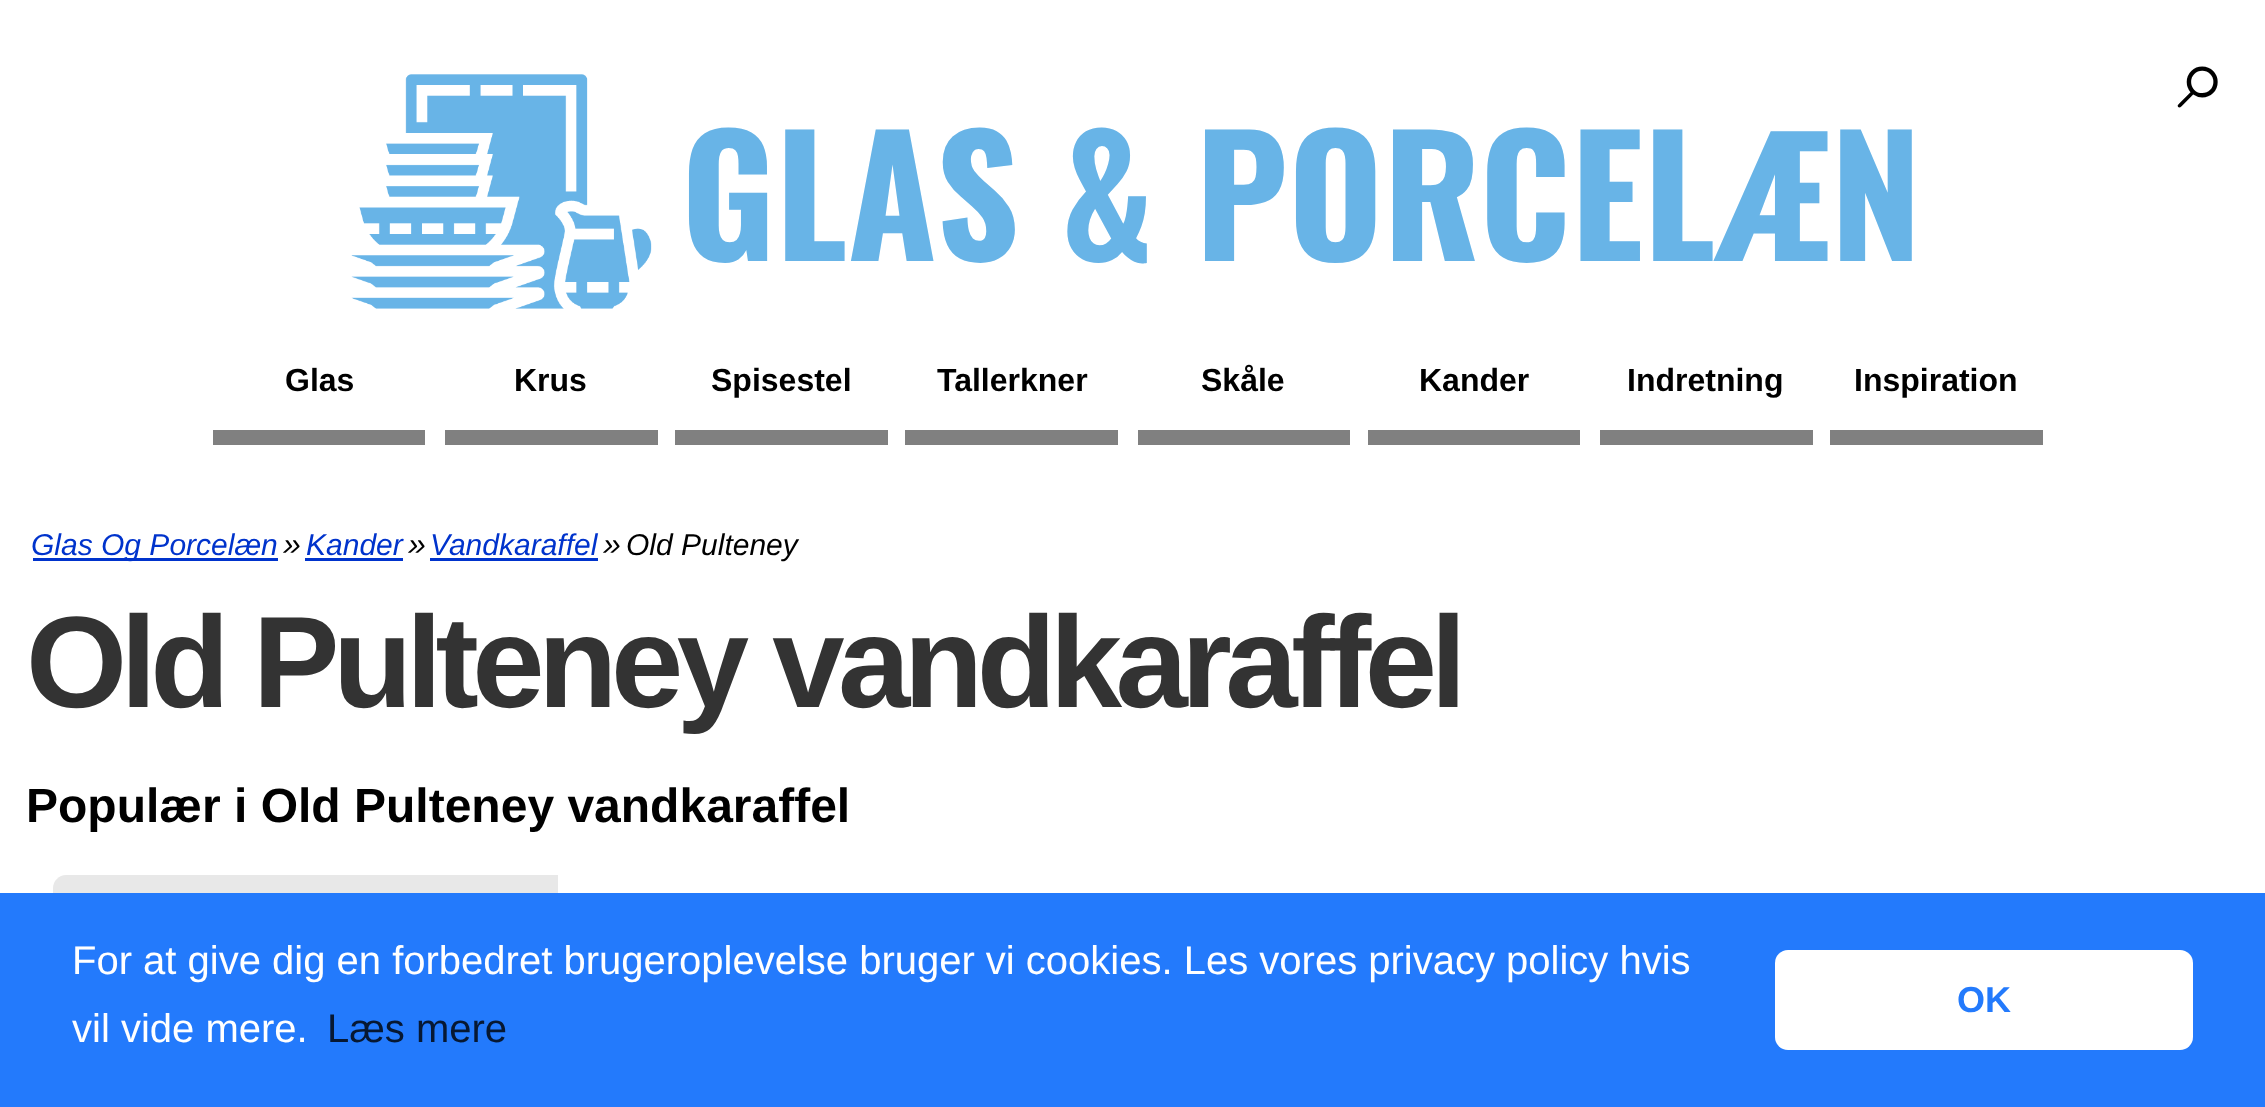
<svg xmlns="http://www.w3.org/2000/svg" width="2265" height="1107">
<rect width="100%" height="100%" fill="#fff"/>
<text x="2177" y="108" style="font-family:FreeSerif;font-size:90px;fill:#000">⌕</text>
<rect x="213" y="430" width="212" height="15" fill="#808080"/>
<text x="285" y="391" style="font-family:Liberation Sans;font-size:32px;font-weight:bold;fill:#000">Glas</text>
<rect x="445" y="430" width="213" height="15" fill="#808080"/>
<text x="514" y="391" style="font-family:Liberation Sans;font-size:32px;font-weight:bold;fill:#000">Krus</text>
<rect x="675" y="430" width="213" height="15" fill="#808080"/>
<text x="711" y="391" style="font-family:Liberation Sans;font-size:32px;font-weight:bold;fill:#000">Spisestel</text>
<rect x="905" y="430" width="213" height="15" fill="#808080"/>
<text x="937" y="391" style="font-family:Liberation Sans;font-size:32px;font-weight:bold;fill:#000">Tallerkner</text>
<rect x="1138" y="430" width="212" height="15" fill="#808080"/>
<text x="1201" y="391" style="font-family:Liberation Sans;font-size:32px;font-weight:bold;fill:#000">Skåle</text>
<rect x="1368" y="430" width="212" height="15" fill="#808080"/>
<text x="1419" y="391" style="font-family:Liberation Sans;font-size:32px;font-weight:bold;fill:#000">Kander</text>
<rect x="1600" y="430" width="213" height="15" fill="#808080"/>
<text x="1627" y="391" style="font-family:Liberation Sans;font-size:32px;font-weight:bold;fill:#000">Indretning</text>
<rect x="1830" y="430" width="213" height="15" fill="#808080"/>
<text x="1854" y="391" style="font-family:Liberation Sans;font-size:32px;font-weight:bold;fill:#000">Inspiration</text>
<image x="351" y="74" width="301" height="235" href="media/1.png"/>
<text x="681" y="261" style="font-family:Oswald;font-size:162.5px;font-weight:bold;fill:#68b4e7">GLAS &amp; PORCELÆN</text>
<rect x="33" y="558" width="245" height="3" fill="#03c"/>
<text x="31" y="555" style="font-family:Liberation Sans;font-size:30px;font-style:italic;fill:#03c">Glas Og Porcelæn</text>
<text x="283" y="555" style="font-family:Liberation Sans;font-size:32px;font-style:italic;fill:#000">»</text>
<text x="306" y="555" style="font-family:Liberation Sans;font-size:30px;font-style:italic;fill:#03c">Kander</text>
<rect x="305" y="558" width="98" height="3" fill="#03c"/>
<text x="408" y="555" style="font-family:Liberation Sans;font-size:32px;font-style:italic;fill:#000">»</text>
<text x="430" y="555" style="font-family:Liberation Sans;font-size:30px;font-style:italic;fill:#03c">Vandkaraffel</text>
<rect x="430" y="558" width="168" height="3" fill="#03c"/>
<text x="603" y="555" style="font-family:Liberation Sans;font-size:32px;font-style:italic;fill:#000">»</text>
<text x="626" y="555" style="font-family:Liberation Sans;font-size:30px;font-style:italic;fill:#000">Old Pulteney</text>
<text x="26" y="707" style="font-family:Liberation Sans;font-size:130px;font-weight:bold;letter-spacing:-6.5px;fill:#333">Old Pulteney vandkaraffel</text>
<text x="26" y="822" style="font-family:Liberation Sans;font-size:48px;font-weight:bold;fill:#000">Populær i Old Pulteney vandkaraffel</text>
<path d="M66 875h492v125h-505v-112c0-7 6-13 13-13z" fill="#e8e8e8"/>
<rect y="893" width="2265" height="214" fill="#237afc"/>
<text x="72" y="974" style="font-family:Liberation Sans;font-size:40px;fill:#fff">For at give dig en forbedret brugeroplevelse bruger vi cookies. Les vores privacy policy hvis</text>
<text x="72" y="1042" style="font-family:Liberation Sans;font-size:40px;fill:#fff">vil vide mere.</text>
<text x="327" y="1042" style="font-family:Liberation Sans;font-size:40px;fill:#071832">Læs mere</text>
<rect x="1775" y="950" width="418" height="100" rx="13" fill="#fff"/>
<text x="1957" y="1012" style="font-family:Liberation Sans;font-size:36px;font-weight:bold;fill:#237afc">OK</text>
</svg>
